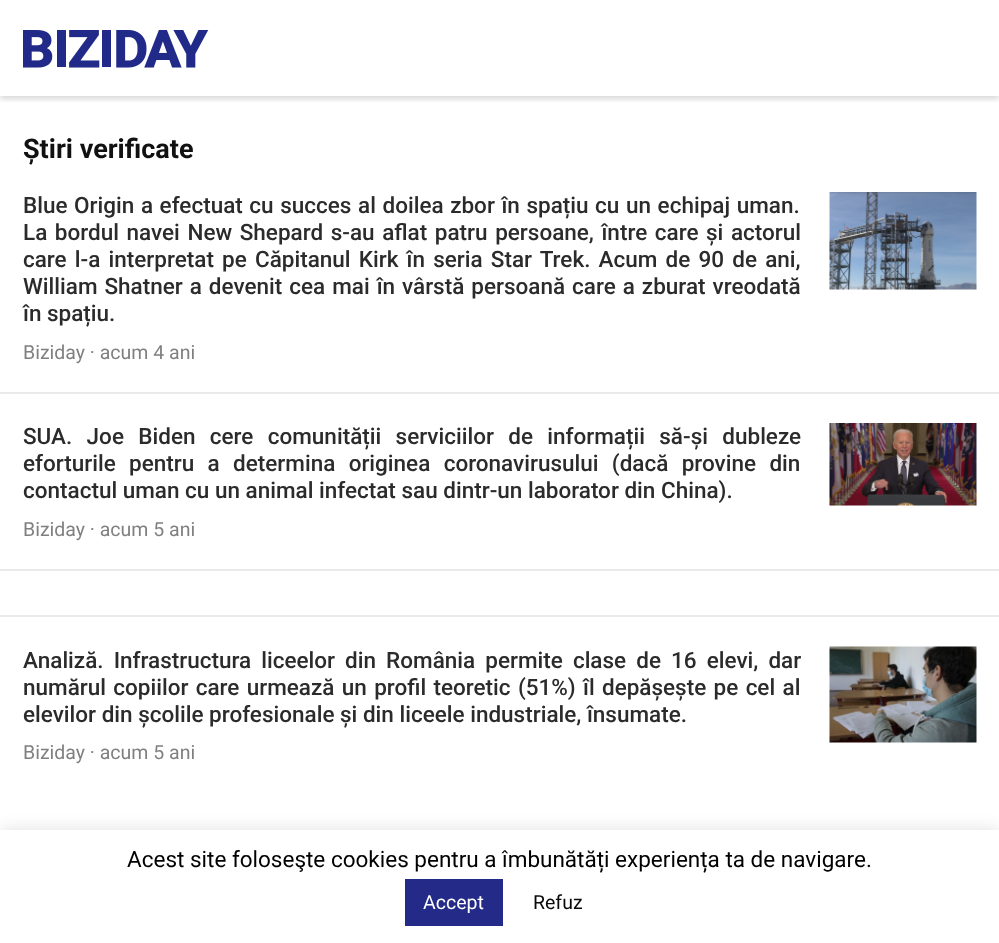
<svg xmlns="http://www.w3.org/2000/svg" width="999" height="943">
<defs>
<clipPath id="clip1"><rect x="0" y="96" width="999" height="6"/></clipPath>
</defs>
<rect width="100%" height="100%" fill="#fff"/>
<g clip-path="url(#clip1)">
<rect y="3" width="999" height="96" fill="#00000029" filter="blur(3px)"/>
</g>
<image x="23" y="30" width="186" height="38" href="media/1.png"/>
<text x="23" y="158" style="font-family:Roboto;font-size:27px;font-weight:bold;fill:#111">Știri verificate</text>
<rect y="392" width="999" height="2" fill="#eaeaea"/>
<text x="23" y="213" word-spacing="1" style="font-family:Roboto;font-size:22.5px;font-weight:500;fill:#2b2b2b">Blue Origin a efectuat cu succes al doilea zbor în spațiu cu un echipaj uman.</text>
<text x="23" y="240" word-spacing="2" style="font-family:Roboto;font-size:22.5px;font-weight:500;fill:#2b2b2b">La bordul navei New Shepard s-au aflat patru persoane, între care și actorul</text>
<text x="23" y="267" word-spacing="2.6" style="font-family:Roboto;font-size:22.5px;font-weight:500;fill:#2b2b2b">care l-a interpretat pe Căpitanul Kirk în seria Star Trek. Acum de 90 de ani,</text>
<text x="23" y="294" word-spacing="1.4" style="font-family:Roboto;font-size:22.5px;font-weight:500;fill:#2b2b2b">William Shatner a devenit cea mai în vârstă persoană care a zburat vreodată</text>
<text x="23" y="321" style="font-family:Roboto;font-size:22.5px;font-weight:500;fill:#2b2b2b">în spațiu.</text>
<text x="23" y="359" style="font-family:Roboto;font-size:19.5px;fill:#808080">Biziday · acum 4 ani</text>
<image x="829" y="192" width="148" height="98" href="media/2.png"/>
<rect y="569" width="999" height="2" fill="#eaeaea"/>
<text x="23" y="444" word-spacing="8.75" style="font-family:Roboto;font-size:22.5px;font-weight:500;fill:#2b2b2b">SUA. Joe Biden cere comunității serviciilor de informații să-și dubleze</text>
<text x="23" y="471" word-spacing="7.75" style="font-family:Roboto;font-size:22.5px;font-weight:500;fill:#2b2b2b">eforturile pentru a determina originea coronavirusului (dacă provine din</text>
<text x="23" y="498" style="font-family:Roboto;font-size:22.5px;font-weight:500;fill:#2b2b2b">contactul uman cu un animal infectat sau dintr-un laborator din China).</text>
<text x="23" y="536" style="font-family:Roboto;font-size:19.5px;fill:#808080">Biziday · acum 5 ani</text>
<image x="829" y="423" width="148" height="83" href="media/3.png"/>
<rect y="615" width="999" height="2" fill="#eaeaea"/>
<text x="23" y="668" word-spacing="4.5" style="font-family:Roboto;font-size:22.5px;font-weight:500;fill:#2b2b2b">Analiză. Infrastructura liceelor din România permite clase de 16 elevi, dar</text>
<text x="23" y="695" word-spacing="1.75" style="font-family:Roboto;font-size:22.5px;font-weight:500;fill:#2b2b2b">numărul copiilor care urmează un profil teoretic (51%) îl depășește pe cel al</text>
<text x="23" y="722" style="font-family:Roboto;font-size:22.5px;font-weight:500;fill:#2b2b2b">elevilor din școlile profesionale și din liceele industriale, însumate.</text>
<text x="23" y="759" style="font-family:Roboto;font-size:19.5px;fill:#808080">Biziday · acum 5 ani</text>
<image x="829" y="646" width="148" height="97" href="media/4.png"/>
<rect y="828" width="999" height="114" fill="#acabab4d" filter="blur(7.5px)"/>
<rect y="830" width="999" height="113" fill="#fff"/>
<text x="127" y="867" style="font-family:Roboto;font-size:22.5px;fill:#000">Acest site foloseşte cookies pentru a îmbunătăți experiența ta de navigare.</text>
<rect x="405" y="879" width="98" height="47" fill="#242a88"/>
<text x="423" y="909" style="font-family:Roboto;font-size:19.5px;fill:#fff">Accept</text>
<text x="533" y="909" style="font-family:Roboto;font-size:19.5px;fill:#0a0a0a">Refuz</text>
</svg>
